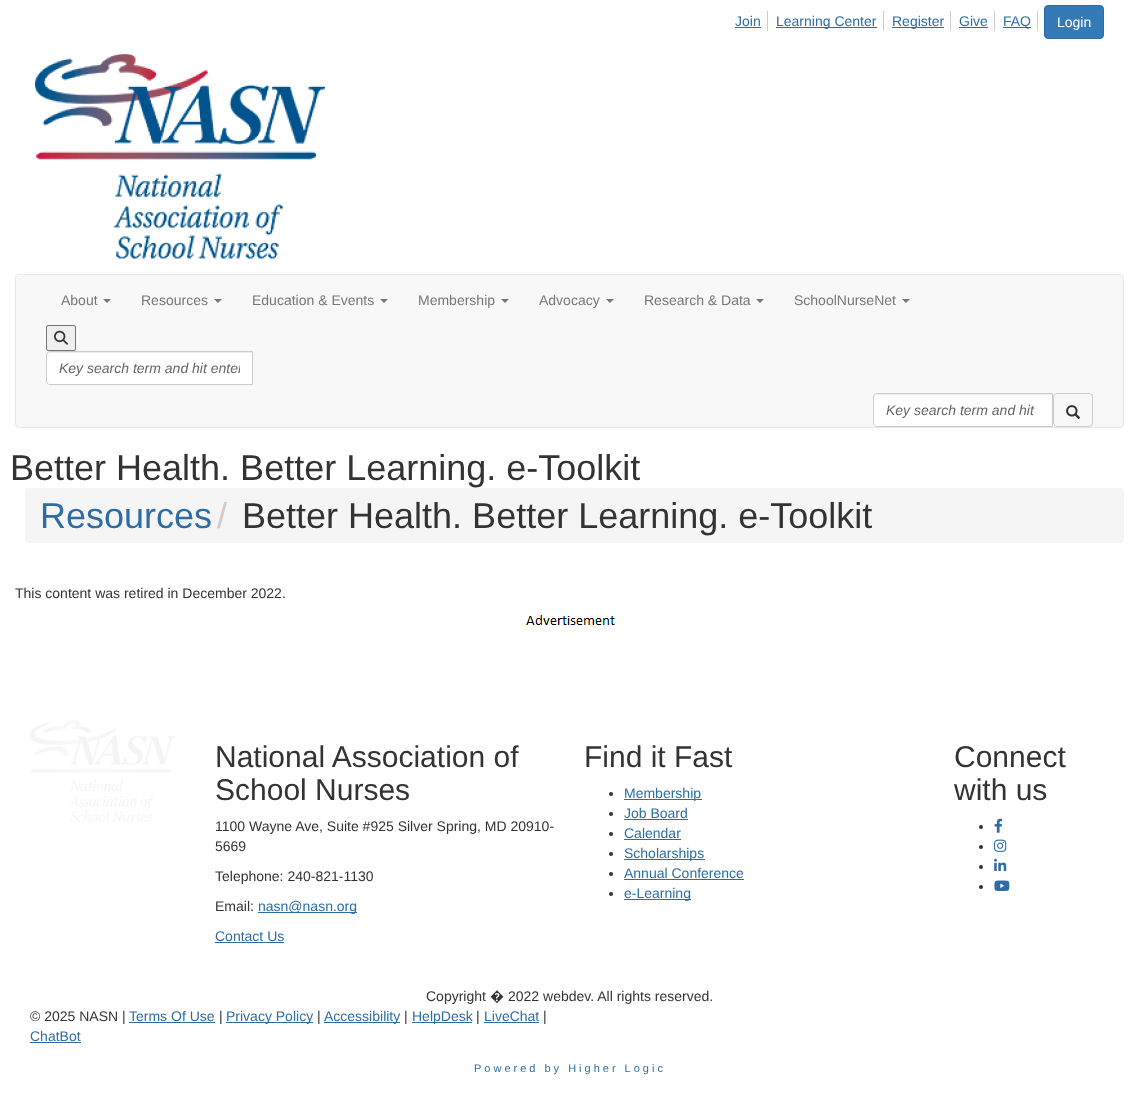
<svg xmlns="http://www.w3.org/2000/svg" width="1139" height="1107">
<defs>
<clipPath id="clip1"><rect x="59" y="360" width="181" height="16"/></clipPath>
</defs>
<rect width="100%" height="100%" fill="#fff"/>
<rect x="767" y="11" width="1" height="20" fill="#ccc"/>
<text x="735" y="26" style="font-family:Liberation Sans;font-size:14px;fill:#2e6da4">Join</text>
<rect x="735" y="27" width="26" height="1" fill="#2e6da4"/>
<rect x="883" y="11" width="1" height="20" fill="#ccc"/>
<rect x="776" y="27" width="101" height="1" fill="#2e6da4"/>
<text x="776" y="26" style="font-family:Liberation Sans;font-size:14px;fill:#2e6da4">Learning Center</text>
<rect x="950" y="11" width="1" height="20" fill="#ccc"/>
<rect x="892" y="27" width="52" height="1" fill="#2e6da4"/>
<text x="892" y="26" style="font-family:Liberation Sans;font-size:14px;fill:#2e6da4">Register</text>
<rect x="994" y="11" width="1" height="20" fill="#ccc"/>
<text x="959" y="26" style="font-family:Liberation Sans;font-size:14px;fill:#2e6da4">Give</text>
<rect x="959" y="27" width="29" height="1" fill="#2e6da4"/>
<rect x="1037" y="11" width="1" height="20" fill="#ccc"/>
<rect x="1003" y="27" width="28" height="1" fill="#2e6da4"/>
<text x="1003" y="26" style="font-family:Liberation Sans;font-size:14px;fill:#2e6da4">FAQ</text>
<rect x="1044.5" y="5.5" width="59" height="33" rx="3.5" fill="#337ab7" stroke="#2e6da4"/>
<text x="1057" y="27" style="font-family:Liberation Sans;font-size:14px;fill:#fff">Login</text>
<image x="35" y="54" width="290" height="205" href="media/1.png"/>
<rect x="15.5" y="274.5" width="1108" height="153" rx="3.5" fill="#f8f8f8" stroke="#e7e7e7"/>
<text x="61" y="305" style="font-family:Liberation Sans;font-size:14px;fill:#777">About</text>
<path d="M103 299h8l-4 4z" fill="#777"/>
<text x="141" y="305" style="font-family:Liberation Sans;font-size:14px;fill:#777">Resources</text>
<path d="M214 299h8l-4 4z" fill="#777"/>
<text x="252" y="305" style="font-family:Liberation Sans;font-size:14px;fill:#777">Education &amp; Events</text>
<path d="M380 299h8l-4 4z" fill="#777"/>
<text x="418" y="305" style="font-family:Liberation Sans;font-size:14px;fill:#777">Membership</text>
<path d="M501 299h8l-4 4z" fill="#777"/>
<text x="539" y="305" style="font-family:Liberation Sans;font-size:14px;fill:#777">Advocacy</text>
<path d="M606 299h8l-4 4z" fill="#777"/>
<text x="644" y="305" style="font-family:Liberation Sans;font-size:14px;fill:#777">Research &amp; Data</text>
<path d="M756 299h8l-4 4z" fill="#777"/>
<text x="794" y="305" style="font-family:Liberation Sans;font-size:14px;fill:#777">SchoolNurseNet</text>
<path d="M902 299h8l-4 4z" fill="#777"/>
<rect x="46.5" y="325.5" width="29" height="25" rx="1.5" fill="#efefef" stroke="#767676"/>
<image x="54" y="330" width="14" height="15" href="media/2.png"/>
<path d="M50 351h203v34h-203c-2 0-4-2-4-4v-26c0-2 2-4 4-4z" fill="#fff"/>
<path d="M50 353h202v-1h-203c-2 1-2 2-2 4c0-2 1-3 3-3z" fill="#ececec"/>
<path d="M50 351.5h202.5v33h-202.5c-2 0-3.5-1.5-3.5-3.5v-26c0-2 1.5-3.5 3.5-3.5z" fill="none" stroke="#ccc"/>
<g clip-path="url(#clip1)">
<text x="59" y="373" style="font-family:Liberation Sans;font-size:14px;font-style:italic;fill:#666">Key search term and hit enter</text>
</g>
<path d="M877 393h176v34h-176c-2 0-4-2-4-4v-26c0-2 2-4 4-4z" fill="#fff"/>
<path d="M877 395h175v-1h-176c-2 1-2 2-2 4c0-2 1-3 3-3z" fill="#ececec"/>
<path d="M877 393.5h175.5v33h-175.5c-2 0-3.5-1.5-3.5-3.5v-26c0-2 1.5-3.5 3.5-3.5z" fill="none" stroke="#ccc"/>
<text x="886" y="415" style="font-family:Liberation Sans;font-size:14px;font-style:italic;fill:#666">Key search term and hit</text>
<rect x="1053.5" y="393.5" width="39" height="33" rx="3.5" fill="none" stroke="#ccc"/>
<image x="1066" y="405" width="15" height="14" href="media/3.png"/>
<text x="10" y="480" style="font-family:Liberation Sans;font-size:36px;fill:#333">Better Health. Better Learning. e-Toolkit</text>
<rect x="25" y="488" width="1099" height="55" rx="4" fill="#f5f5f5"/>
<text x="40" y="528" style="font-family:Liberation Sans;font-size:36px;fill:#2e6da4">Resources</text>
<text x="217" y="528" style="font-family:Liberation Sans;font-size:36px;fill:#ccc">/</text>
<text x="242" y="528" style="font-family:Liberation Sans;font-size:36px;fill:#333">Better Health. Better Learning. e-Toolkit</text>
<text x="15" y="598" style="font-family:Liberation Sans;font-size:14px;fill:#333">This content was retired in December 2022.</text>
<image x="526" y="615" width="89" height="10" href="media/4.png"/>
<image x="30" y="720" width="145" height="102" href="media/5.png"/>
<text x="215" y="767" style="font-family:Liberation Sans;font-size:30px;fill:#333">National Association of</text>
<text x="215" y="800" style="font-family:Liberation Sans;font-size:30px;fill:#333">School Nurses</text>
<text x="215" y="831" style="font-family:Liberation Sans;font-size:14px;fill:#333">1100 Wayne Ave, Suite #925 Silver Spring, MD 20910-</text>
<text x="215" y="851" style="font-family:Liberation Sans;font-size:14px;fill:#333">5669</text>
<text x="215" y="881" style="font-family:Liberation Sans;font-size:14px;fill:#333">Telephone: 240-821-1130</text>
<text x="215" y="911" style="font-family:Liberation Sans;font-size:14px;fill:#333">Email:</text>
<rect x="258" y="912" width="99" height="1" fill="#2e6da4"/>
<text x="258" y="911" style="font-family:Liberation Sans;font-size:14px;fill:#2e6da4">nasn@nasn.org</text>
<text x="215" y="941" style="font-family:Liberation Sans;font-size:14px;fill:#2e6da4">Contact Us</text>
<rect x="215" y="942" width="69" height="1" fill="#2e6da4"/>
<text x="584" y="767" style="font-family:Liberation Sans;font-size:30px;fill:#333">Find it Fast</text>
<circle cx="611" cy="794" r="2" fill="#333"/>
<rect x="624" y="799" width="78" height="1" fill="#2e6da4"/>
<text x="624" y="798" style="font-family:Liberation Sans;font-size:14px;fill:#2e6da4">Membership</text>
<circle cx="611" cy="814" r="2" fill="#333"/>
<text x="624" y="818" style="font-family:Liberation Sans;font-size:14px;fill:#2e6da4">Job Board</text>
<rect x="624" y="819" width="64" height="1" fill="#2e6da4"/>
<circle cx="611" cy="834" r="2" fill="#333"/>
<text x="624" y="838" style="font-family:Liberation Sans;font-size:14px;fill:#2e6da4">Calendar</text>
<rect x="624" y="839" width="57" height="1" fill="#2e6da4"/>
<circle cx="611" cy="854" r="2" fill="#333"/>
<rect x="624" y="859" width="81" height="1" fill="#2e6da4"/>
<text x="624" y="858" style="font-family:Liberation Sans;font-size:14px;fill:#2e6da4">Scholarships</text>
<circle cx="611" cy="874" r="2" fill="#333"/>
<text x="624" y="878" style="font-family:Liberation Sans;font-size:14px;fill:#2e6da4">Annual Conference</text>
<rect x="624" y="879" width="120" height="1" fill="#2e6da4"/>
<circle cx="611" cy="894" r="2" fill="#333"/>
<rect x="624" y="899" width="67" height="1" fill="#2e6da4"/>
<text x="624" y="898" style="font-family:Liberation Sans;font-size:14px;fill:#2e6da4">e-Learning</text>
<text x="954" y="767" style="font-family:Liberation Sans;font-size:30px;fill:#333">Connect</text>
<text x="954" y="800" style="font-family:Liberation Sans;font-size:30px;fill:#333">with us</text>
<circle cx="981" cy="827" r="2" fill="#333"/>
<image x="994" y="818" width="9" height="15" href="media/6.png"/>
<circle cx="981" cy="847" r="2" fill="#333"/>
<image x="994" y="839" width="13" height="13" href="media/7.png"/>
<circle cx="981" cy="867" r="2" fill="#333"/>
<image x="994" y="858" width="13" height="13" href="media/8.png"/>
<circle cx="981" cy="887" r="2" fill="#333"/>
<image x="994" y="880" width="16" height="11" href="media/9.png"/>
<text x="426" y="1001" style="font-family:Liberation Sans;font-size:14px;fill:#333">Copyright</text>
<text x="490" y="1001" style="font-family:Noto Sans;font-size:14px;fill:#333">�</text>
<text x="508" y="1001" style="font-family:Liberation Sans;font-size:14px;fill:#333">2022 webdev. All rights reserved.</text>
<text x="30" y="1021" style="font-family:Liberation Sans;font-size:14px;fill:#333">© 2025 NASN |</text>
<text x="129" y="1021" style="font-family:Liberation Sans;font-size:14px;fill:#2e6da4">Terms Of Use</text>
<rect x="129" y="1022" width="86" height="1" fill="#2e6da4"/>
<text x="219" y="1021" style="font-family:Liberation Sans;font-size:14px;fill:#333">|</text>
<rect x="226" y="1022" width="87" height="1" fill="#2e6da4"/>
<text x="226" y="1021" style="font-family:Liberation Sans;font-size:14px;fill:#2e6da4">Privacy Policy</text>
<text x="317" y="1021" style="font-family:Liberation Sans;font-size:14px;fill:#333">|</text>
<rect x="324" y="1022" width="76" height="1" fill="#2e6da4"/>
<text x="324" y="1021" style="font-family:Liberation Sans;font-size:14px;fill:#2e6da4">Accessibility</text>
<text x="404" y="1021" style="font-family:Liberation Sans;font-size:14px;fill:#333">|</text>
<rect x="412" y="1022" width="60" height="1" fill="#2e6da4"/>
<text x="412" y="1021" style="font-family:Liberation Sans;font-size:14px;fill:#2e6da4">HelpDesk</text>
<text x="476" y="1021" style="font-family:Liberation Sans;font-size:14px;fill:#333">|</text>
<text x="484" y="1021" style="font-family:Liberation Sans;font-size:14px;fill:#2e6da4">LiveChat</text>
<rect x="484" y="1022" width="55" height="1" fill="#2e6da4"/>
<text x="543" y="1021" style="font-family:Liberation Sans;font-size:14px;fill:#333">|</text>
<text x="30" y="1041" style="font-family:Liberation Sans;font-size:14px;fill:#2e6da4">ChatBot</text>
<rect x="30" y="1042" width="51" height="1" fill="#2e6da4"/>
<text x="474" y="1072" style="font-family:Liberation Sans;font-size:11px;letter-spacing:3px;fill:#2e6da4">Powered by Higher Logic</text>
</svg>
